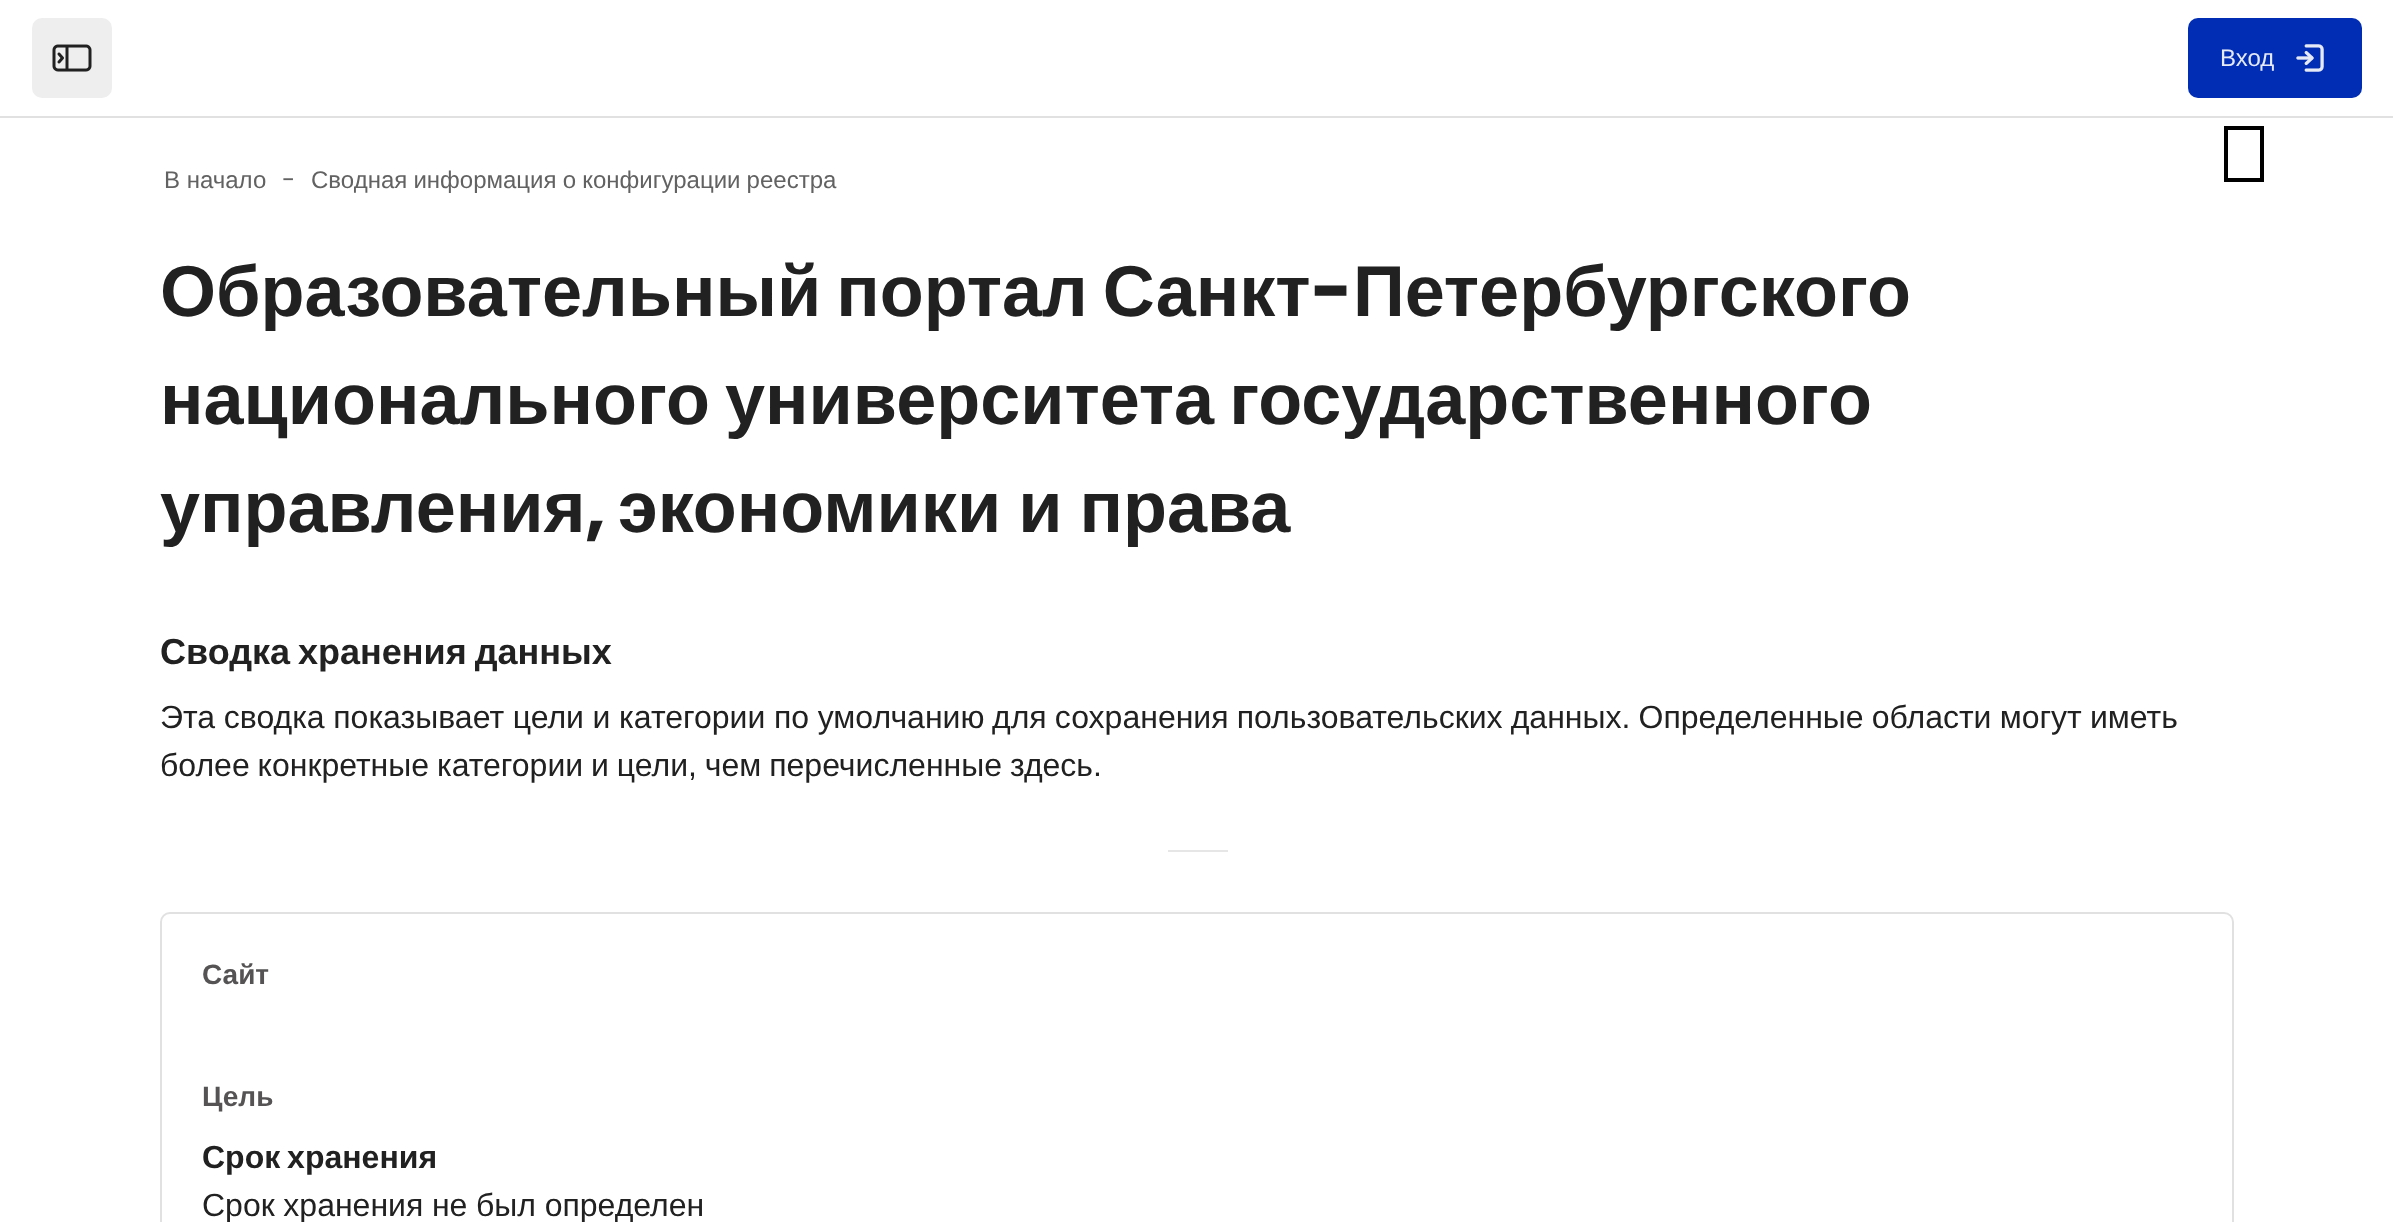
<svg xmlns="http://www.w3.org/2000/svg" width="2393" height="1222">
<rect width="100%" height="100%" fill="#fff"/>
<rect y="116" width="2393" height="2" fill="#e1e1e1"/>
<rect x="32" y="18" width="80" height="80" rx="10" fill="#eee"/>
<image x="52" y="44" width="40" height="28" href="media/1.png"/>
<rect x="2188" y="18" width="174" height="80" rx="10" fill="#002db3"/>
<text x="2220" y="66" style="font-family:Liberation Sans;font-size:24px;fill:#e6eaf7">Вход</text>
<image x="2296" y="44" width="28" height="28" href="media/2.png"/>
<rect x="2226" y="128" width="36" height="52" fill="none" stroke="#000" stroke-width="4"/>
<text x="164" y="188" style="font-family:Liberation Sans;font-size:24px;fill:#626262">В начало</text>
<text x="282" y="188" style="font-family:Poppins;font-size:24px;fill:#626262">-</text>
<text x="311" y="188" word-spacing="-0.5" style="font-family:Liberation Sans;font-size:24px;fill:#626262">Сводная информация о конфигурации реестра</text>
<text x="160" y="316" word-spacing="-5" style="font-family:Liberation Sans;font-size:72px;font-weight:bold;fill:#212121">Образовательный портал Санкт</text>
<text x="1311" y="316" style="font-family:Poppins;font-size:72px;font-weight:bold;fill:#212121">-</text>
<text x="1353" y="316" style="font-family:Liberation Sans;font-size:72px;font-weight:bold;fill:#212121">Петербургского</text>
<text x="160" y="424" word-spacing="-5" style="font-family:Liberation Sans;font-size:72px;font-weight:bold;fill:#212121">национального университета государственного</text>
<text x="160" y="532" style="font-family:Liberation Sans;font-size:72px;font-weight:bold;fill:#212121">управления</text>
<text x="585" y="532" style="font-family:Poppins;font-size:72px;font-weight:bold;fill:#212121">,</text>
<text x="618" y="532" word-spacing="-3" style="font-family:Liberation Sans;font-size:72px;font-weight:bold;fill:#212121">экономики и права</text>
<text x="160" y="664" word-spacing="-2" style="font-family:Liberation Sans;font-size:36px;font-weight:bold;fill:#212121">Сводка хранения данных</text>
<text x="160" y="728" word-spacing="-0.25" style="font-family:Liberation Sans;font-size:32px;fill:#212121">Эта сводка показывает цели и категории по умолчанию</text>
<text x="992" y="728" word-spacing="-0.75" style="font-family:Liberation Sans;font-size:32px;fill:#212121">для сохранения пользовательских данных. Определенные области могут иметь</text>
<text x="160" y="776" word-spacing="-1" style="font-family:Liberation Sans;font-size:32px;fill:#212121">более конкретные категории и цели, чем перечисленные здесь.</text>
<rect x="1168" y="850" width="60" height="2" fill="#e6e6e6"/>
<rect x="161" y="913" width="2072" height="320" rx="9" fill="none" stroke="#e1e1e1" stroke-width="2"/>
<text x="202" y="984" style="font-family:Liberation Sans;font-size:28px;font-weight:bold;fill:#555353">Сайт</text>
<text x="202" y="1106" style="font-family:Liberation Sans;font-size:28px;font-weight:bold;fill:#555353">Цель</text>
<text x="202" y="1168" word-spacing="-2" style="font-family:Liberation Sans;font-size:32px;font-weight:bold;fill:#212121">Срок хранения</text>
<text x="202" y="1216" word-spacing="-0.25" style="font-family:Liberation Sans;font-size:32px;fill:#212121">Срок хранения не был определен</text>
</svg>
